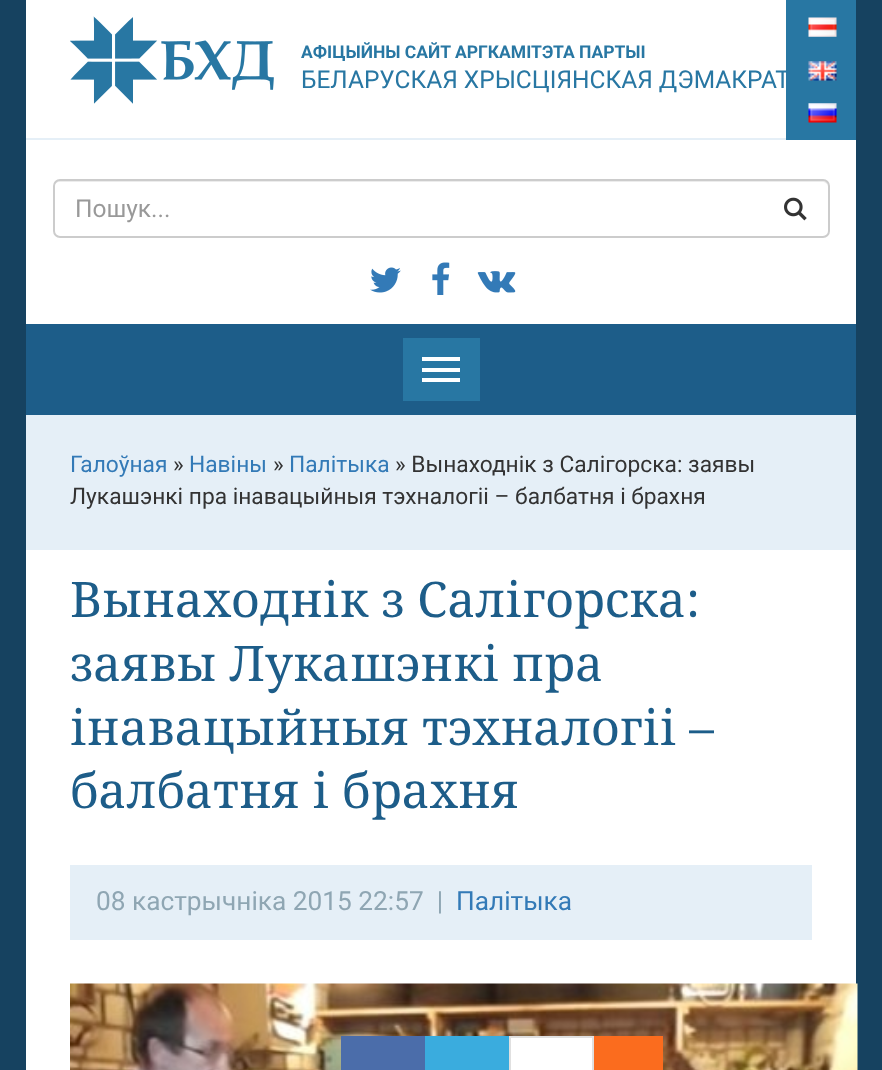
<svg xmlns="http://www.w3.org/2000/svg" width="882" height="1070">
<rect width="100%" height="100%" fill="#164260"/>
<rect x="26" width="830" height="324" fill="#fff"/>
<rect x="786" width="70" height="140" fill="#2877a3"/>
<image x="808" y="17" width="29" height="20" href="media/1.png"/>
<image x="808" y="61" width="29" height="20" href="media/2.png"/>
<image x="808" y="103" width="29" height="20" href="media/3.png"/>
<image x="370" y="267" width="31" height="26" href="media/4.png"/>
<image x="432" y="262" width="18" height="33" href="media/5.png"/>
<image x="477" y="271" width="39" height="22" href="media/6.png"/>
<rect x="26" y="138" width="760" height="2" fill="#e5eff7"/>
<image x="70" y="16" width="204" height="88" href="media/7.png"/>
<text x="301" y="58" style="font-family:Roboto;font-size:17.5px;font-weight:bold;fill:#2877a3">АФІЦЫЙНЫ САЙТ АРГКАМІТЭТА ПАРТЫІ</text>
<text x="301" y="88" style="font-family:Roboto;font-size:24.5px;fill:#2877a3">БЕЛАРУСКАЯ ХРЫСЦІЯНСКАЯ ДЭМАКРАТ</text>
<path d="M60 182h762c3 0 6 2 6 5c0-3-1-7-5-7h-764c-4 0-5 4-5 7c0-3 3-5 6-5z" fill="#ececec"/>
<rect x="54" y="180" width="775" height="57" rx="6" fill="none" stroke="#ccc" stroke-width="2"/>
<text x="75" y="217" style="font-family:Roboto;font-size:24.5px;fill:#999">Пошук...</text>
<image x="784" y="197" width="23" height="24" href="media/8.png"/>
<rect x="26" y="324" width="830" height="91" fill="#1d5d89"/>
<rect x="403" y="338" width="77" height="63" fill="#2877a3"/>
<rect x="422" y="357" width="38" height="4" fill="#fff"/>
<rect x="422" y="368" width="38" height="4" fill="#fff"/>
<rect x="422" y="378" width="38" height="4" fill="#fff"/>
<rect x="26" y="550" width="830" height="520" fill="#fff"/>
<rect x="26" y="415" width="830" height="135" fill="#e5eff7"/>
<text x="70" y="472" style="font-family:Roboto;font-size:22.75px;fill:#337ab7">Галоўная</text>
<text x="173" y="472" style="font-family:Roboto;font-size:22.75px;fill:#333">»</text>
<text x="189" y="472" style="font-family:Roboto;font-size:22.75px;fill:#337ab7">Навіны</text>
<text x="273" y="472" style="font-family:Roboto;font-size:22.75px;fill:#333">»</text>
<text x="289" y="472" style="font-family:Roboto;font-size:22.75px;fill:#337ab7">Палітыка</text>
<text x="395" y="472" style="font-family:Roboto;font-size:22.75px;fill:#333">» Вынаходнік з Салігорска: заявы</text>
<text x="70" y="504" style="font-family:Roboto;font-size:22.75px;fill:#333">Лукашэнкі пра інавацыйныя тэхналогіі – балбатня і брахня</text>
<text x="70" y="617" style="font-family:Noto Serif;font-size:49px;fill:#1d5d89">Вынаходнік з Салігорска:</text>
<text x="70" y="681" style="font-family:Noto Serif;font-size:49px;fill:#1d5d89">заявы Лукашэнкі пра</text>
<text x="70" y="745" style="font-family:Noto Serif;font-size:49px;fill:#1d5d89">інавацыйныя тэхналогіі –</text>
<text x="70" y="808" style="font-family:Noto Serif;font-size:49px;fill:#1d5d89">балбатня і брахня</text>
<rect x="70" y="865" width="742" height="75" fill="#e5eff7"/>
<text x="96" y="910" style="font-family:Roboto;font-size:26.25px;fill:#8fa6b3" xml:space="preserve">08 кастрычніка 2015 22:57  |</text>
<text x="456" y="910" style="font-family:Roboto;font-size:26.25px;fill:#337ab7">Палітыка</text>
<image x="70" y="983" width="788" height="87" href="media/9.png"/>
<rect x="341" y="1036" width="84" height="34" fill="#4b6daa"/>
<rect x="425" y="1036" width="84" height="34" fill="#3aacde"/>
<rect x="511" y="1038" width="81" height="32" fill="#fff"/>
<rect x="509" y="1036" width="84" height="2" fill="#e0e0e0"/>
<rect x="592" y="1036" width="2" height="34" fill="#e0e0e0"/>
<rect x="509" y="1036" width="2" height="34" fill="#e0e0e0"/>
<rect x="594" y="1036" width="69" height="34" fill="#fb6c1e"/>
</svg>
